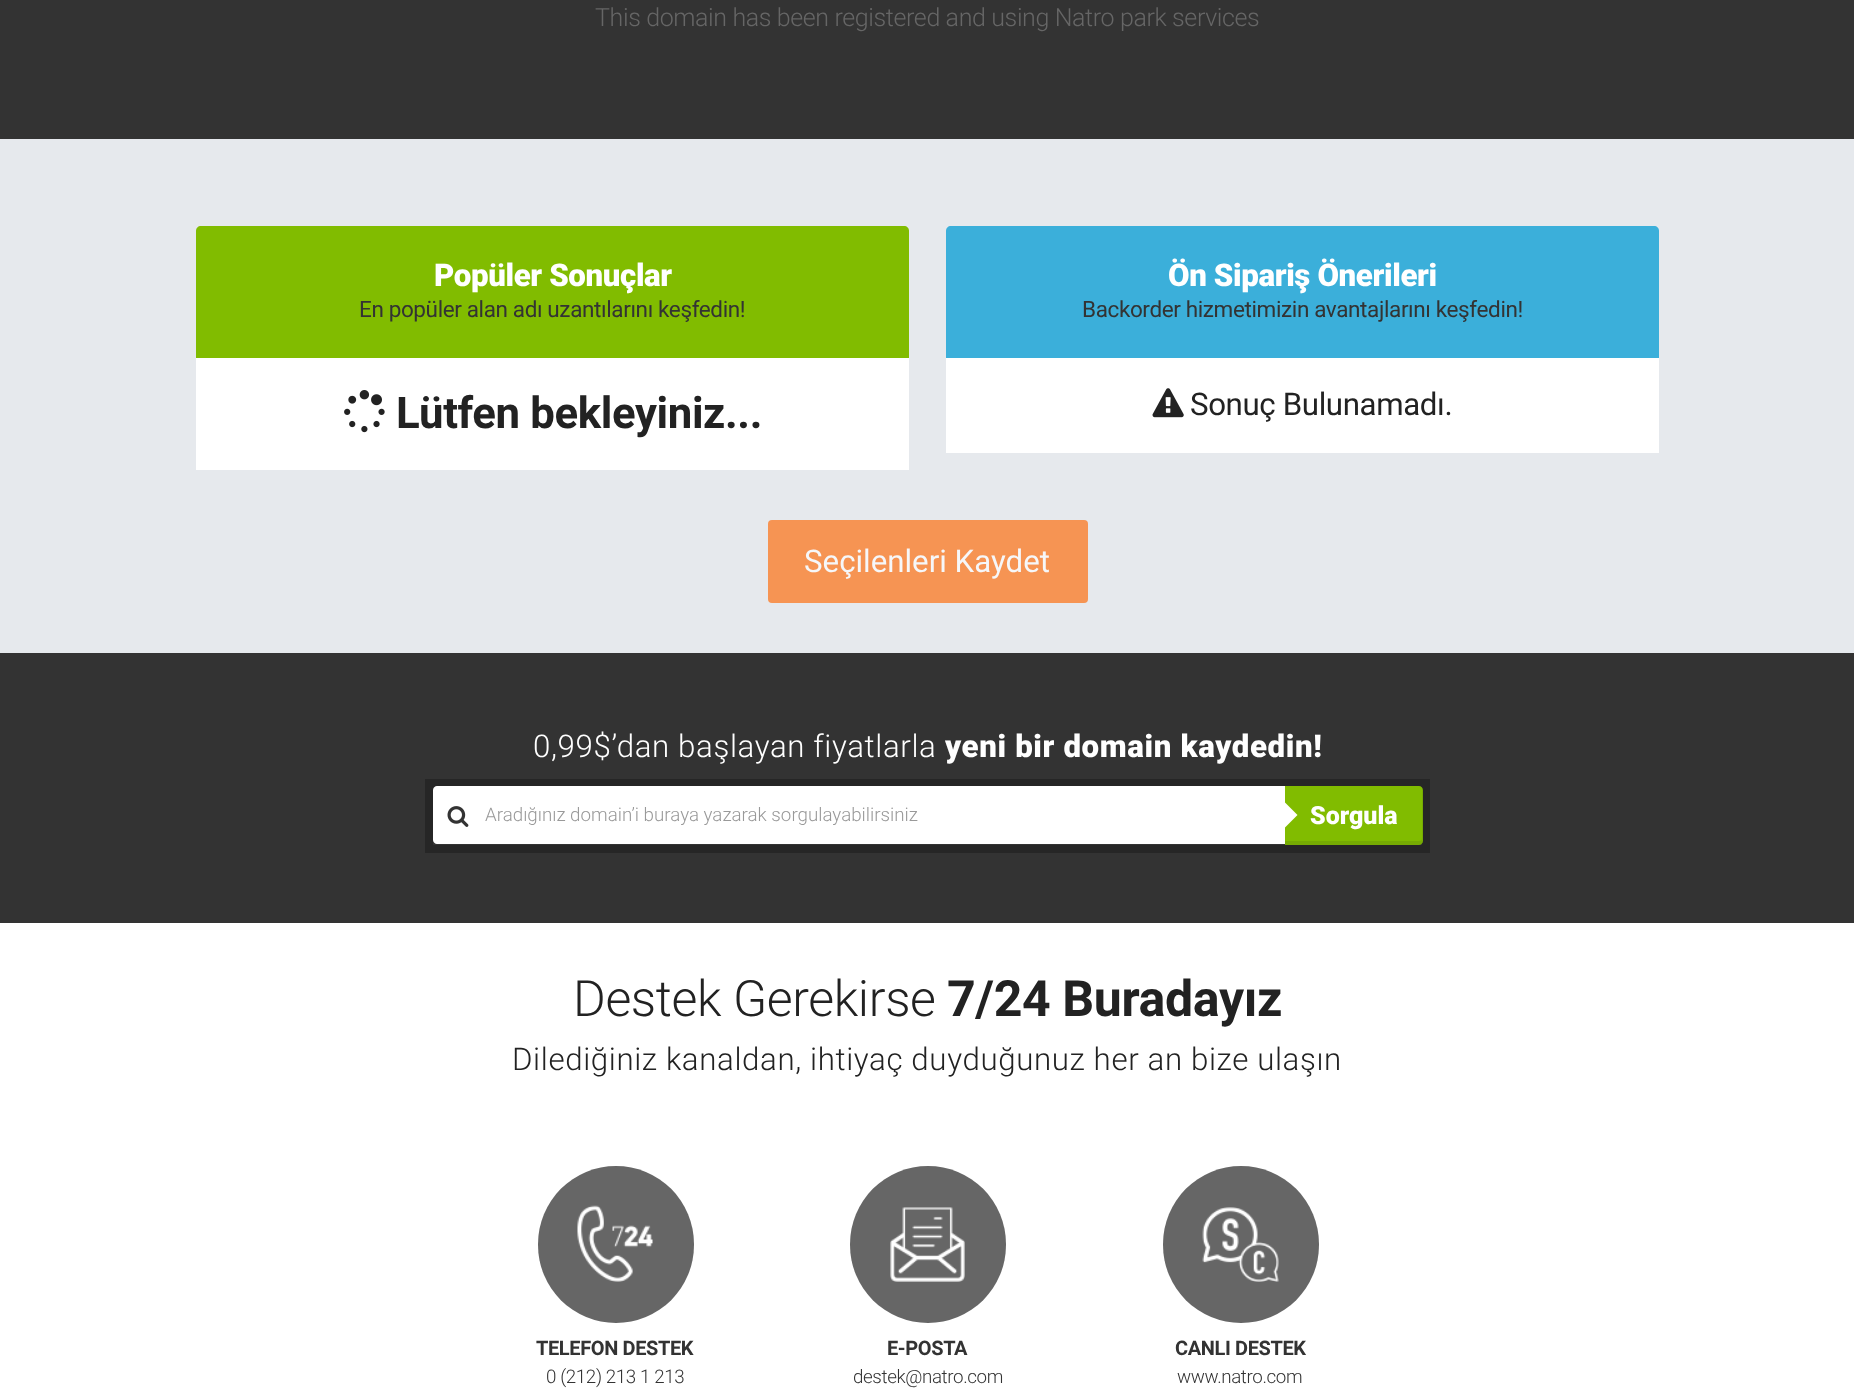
<svg xmlns="http://www.w3.org/2000/svg" width="1854" height="1390">
<rect width="100%" height="100%" fill="#fff"/>
<rect width="1854" height="139" fill="#333"/>
<text x="595" y="26" style="font-family:Roboto;font-size:25px;font-weight:300;letter-spacing:-0.38px;fill:#666">This domain has been registered and using Natro park services</text>
<rect y="139" width="1854" height="514" fill="#e6e9ed"/>
<path d="M201 226h703c3 0 5 2 5 5v127h-713v-127c0-3 2-5 5-5z" fill="#81bc00"/>
<text x="434" y="286" style="font-family:Roboto;font-size:31.25px;font-weight:900;letter-spacing:-0.38px;fill:#fff">Popüler Sonuçlar</text>
<text x="359" y="317" style="font-family:Roboto;font-size:22.5px;letter-spacing:-0.38px;fill:#333">En popüler alan adı uzantılarını keşfedin!</text>
<rect x="196" y="358" width="713" height="112" fill="#fff"/>
<image x="344" y="390" width="41" height="43" href="media/1.png"/>
<text x="396" y="428" style="font-family:Roboto;font-size:43.75px;font-weight:bold;letter-spacing:-0.38px;fill:#222">Lütfen bekleyiniz...</text>
<path d="M951 226h703c3 0 5 2 5 5v127h-713v-127c0-3 2-5 5-5z" fill="#3bafda"/>
<text x="1168" y="286" style="font-family:Roboto;font-size:31.25px;font-weight:900;letter-spacing:-0.38px;fill:#fff">Ön Sipariş Önerileri</text>
<text x="1082" y="317" style="font-family:Roboto;font-size:22.5px;letter-spacing:-0.38px;fill:#333">Backorder hizmetimizin avantajlarını keşfedin!</text>
<rect x="946" y="358" width="713" height="95" fill="#fff"/>
<image x="1152" y="388" width="32" height="30" href="media/2.png"/>
<text x="1190" y="415" style="font-family:Roboto;font-size:31.25px;letter-spacing:-0.38px;fill:#222">Sonuç Bulunamadı.</text>
<rect x="768" y="520" width="320" height="83" rx="4" fill="#f69453"/>
<text x="804" y="572" style="font-family:Roboto;font-size:31.25px;fill:#f6f7f9">Seçilenleri Kaydet</text>
<rect y="653" width="1854" height="270" fill="#333"/>
<text x="533" y="757" style="font-family:Roboto;font-size:31.25px;font-weight:300;letter-spacing:0.62px;fill:#fff">0,99$’dan başlayan fiyatlarla</text>
<text x="945" y="757" style="font-family:Roboto;font-size:31.25px;font-weight:900;letter-spacing:0.62px;fill:#fff">yeni bir domain kaydedin!</text>
<rect x="429" y="783" width="997" height="66" fill="none" stroke="#262626" stroke-width="8"/>
<path d="M437 786h849v58h-849c-2 0-4-2-4-4v-50c0-2 2-4 4-4z" fill="#fff"/>
<image x="447" y="806" width="22" height="21" href="media/3.png"/>
<text x="485" y="821" style="font-family:Roboto;font-size:18.75px;font-weight:300;fill:#999">Aradığınız domain’i buraya yazarak sorgulayabilirsiniz</text>
<path d="M1285 786h134c2 0 4 2 4 4v51c0 2-2 4-4 4h-134z" fill="#81bc00"/>
<path d="M1285 841v4h134c2 0 4-2 4-4v-51c0-1 0-2-1-3v51c0 2-1 3-3 3z" fill="#2222221a"/>
<path d="M1285 827.5v-25l12.5 12.5z" fill="#fff"/>
<text x="1310" y="824" style="font-family:Roboto;font-size:25px;font-weight:900;fill:#fff">Sorgula</text>
<text x="573" y="1016" style="font-family:Roboto;font-size:50px;font-weight:300;letter-spacing:-0.38px;fill:#222">Destek Gerekirse</text>
<text x="947" y="1016" style="font-family:Roboto;font-size:50px;font-weight:bold;letter-spacing:-0.38px;fill:#222">7/24 Buradayız</text>
<text x="512" y="1070" style="font-family:Roboto;font-size:31.25px;font-weight:300;letter-spacing:0.62px;fill:#222">Dilediğiniz kanaldan, ihtiyaç duyduğunuz her an bize ulaşın</text>
<rect x="538" y="1166" width="156" height="157" rx="78" fill="#666"/>
<image x="577" y="1205" width="76" height="77" href="media/4.png"/>
<text x="536" y="1355" style="font-family:Roboto;font-size:20px;font-weight:bold;letter-spacing:-0.38px;fill:#333">TELEFON DESTEK</text>
<text x="546" y="1383" style="font-family:Roboto;font-size:18.75px;font-weight:300;letter-spacing:-0.38px;fill:#333">0 (212) 213 1 213</text>
<rect x="850" y="1166" width="156" height="157" rx="78" fill="#666"/>
<image x="890" y="1207" width="75" height="75" href="media/5.png"/>
<text x="887" y="1355" style="font-family:Roboto;font-size:20px;font-weight:bold;letter-spacing:-0.38px;fill:#333">E-POSTA</text>
<text x="853" y="1383" style="font-family:Roboto;font-size:18.75px;font-weight:300;letter-spacing:-0.38px;fill:#333">destek@natro.com</text>
<rect x="1163" y="1166" width="156" height="157" rx="78" fill="#666"/>
<image x="1202" y="1207" width="77" height="75" href="media/6.png"/>
<text x="1175" y="1355" style="font-family:Roboto;font-size:20px;font-weight:bold;letter-spacing:-0.38px;fill:#333">CANLI DESTEK</text>
<text x="1177" y="1383" style="font-family:Roboto;font-size:18.75px;font-weight:300;letter-spacing:-0.38px;fill:#333">www.natro.com</text>
</svg>
